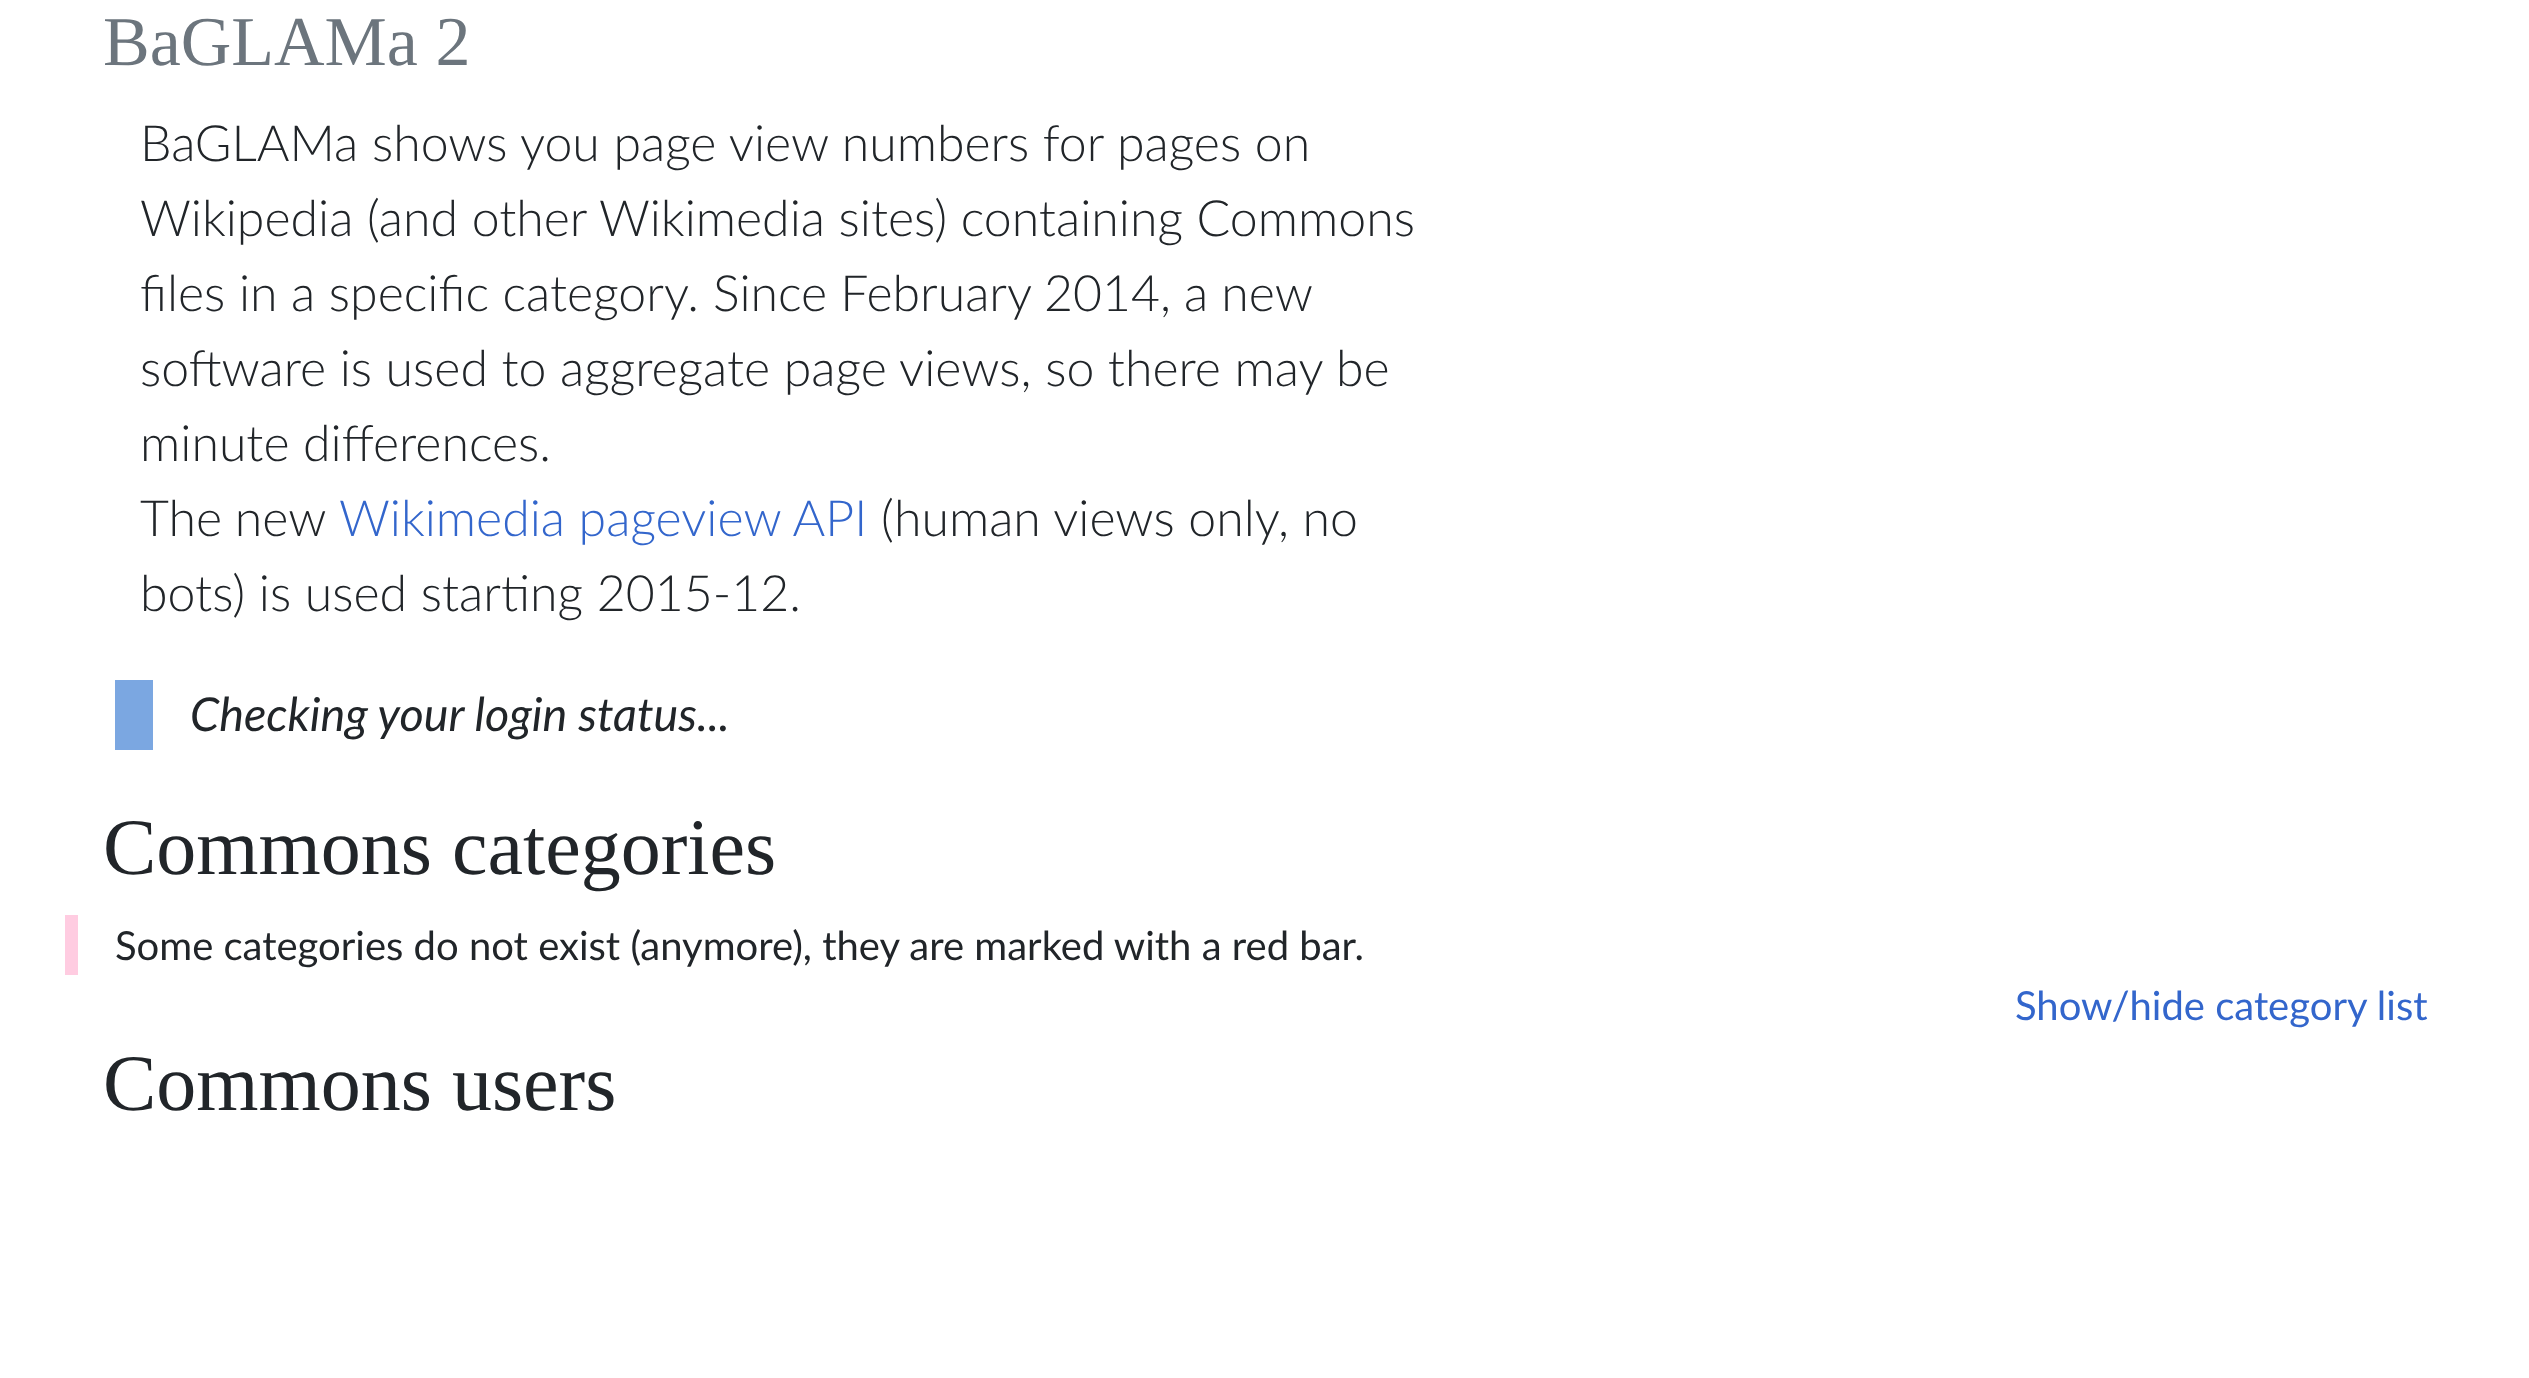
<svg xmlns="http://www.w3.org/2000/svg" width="2529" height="1378">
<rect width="100%" height="100%" fill="#fff"/>
<text x="103" y="65" style="font-family:Liberation Serif;font-size:70px;fill:#6c757d">BaGLAMa 2</text>
<text x="140" y="161" style="font-family:Lato;font-size:50px;font-weight:300;fill:#212529">BaGLAMa shows you page view numbers for pages on</text>
<text x="140" y="236" style="font-family:Lato;font-size:50px;font-weight:300;fill:#212529">Wikipedia (and other Wikimedia sites) containing Commons</text>
<text x="140" y="311" style="font-family:Lato;font-size:50px;font-weight:300;fill:#212529">files in a specific category.</text>
<text x="713" y="311" word-spacing="-0.5" style="font-family:Lato;font-size:50px;font-weight:300;fill:#212529">Since February 2014, a new</text>
<text x="140" y="386" style="font-family:Lato;font-size:50px;font-weight:300;fill:#212529">software is used to aggregate page views, so there may be</text>
<text x="140" y="461" style="font-family:Lato;font-size:50px;font-weight:300;fill:#212529">minute differences.</text>
<text x="140" y="536" word-spacing="-1" style="font-family:Lato;font-size:50px;font-weight:300;fill:#212529">The new</text>
<text x="339" y="536" style="font-family:Lato;font-size:50px;font-weight:300;fill:#36c">Wikimedia pageview API</text>
<text x="881" y="536" style="font-family:Lato;font-size:50px;font-weight:300;fill:#212529">(human views only, no</text>
<text x="140" y="611" style="font-family:Lato;font-size:50px;font-weight:300;fill:#212529">bots) is used starting 2015-12.</text>
<rect x="115" y="680" width="38" height="70" fill="#7ba7e1"/>
<text x="190" y="731" style="font-family:Lato;font-size:46.75px;font-style:italic;fill:#212529">Checking your login status...</text>
<text x="103" y="874" style="font-family:Liberation Serif;font-size:80px;fill:#212529">Commons categories</text>
<rect x="65" y="915" width="13" height="60" fill="#ffcce1"/>
<text x="115" y="960" style="font-family:Lato;font-size:40px;fill:#212529">Some categories do not exist (anymore), they are marked with a red bar.</text>
<text x="2015" y="1020" style="font-family:Lato;font-size:40px;fill:#36c">Show/hide category list</text>
<text x="103" y="1110" style="font-family:Liberation Serif;font-size:80px;fill:#212529">Commons users</text>
</svg>
